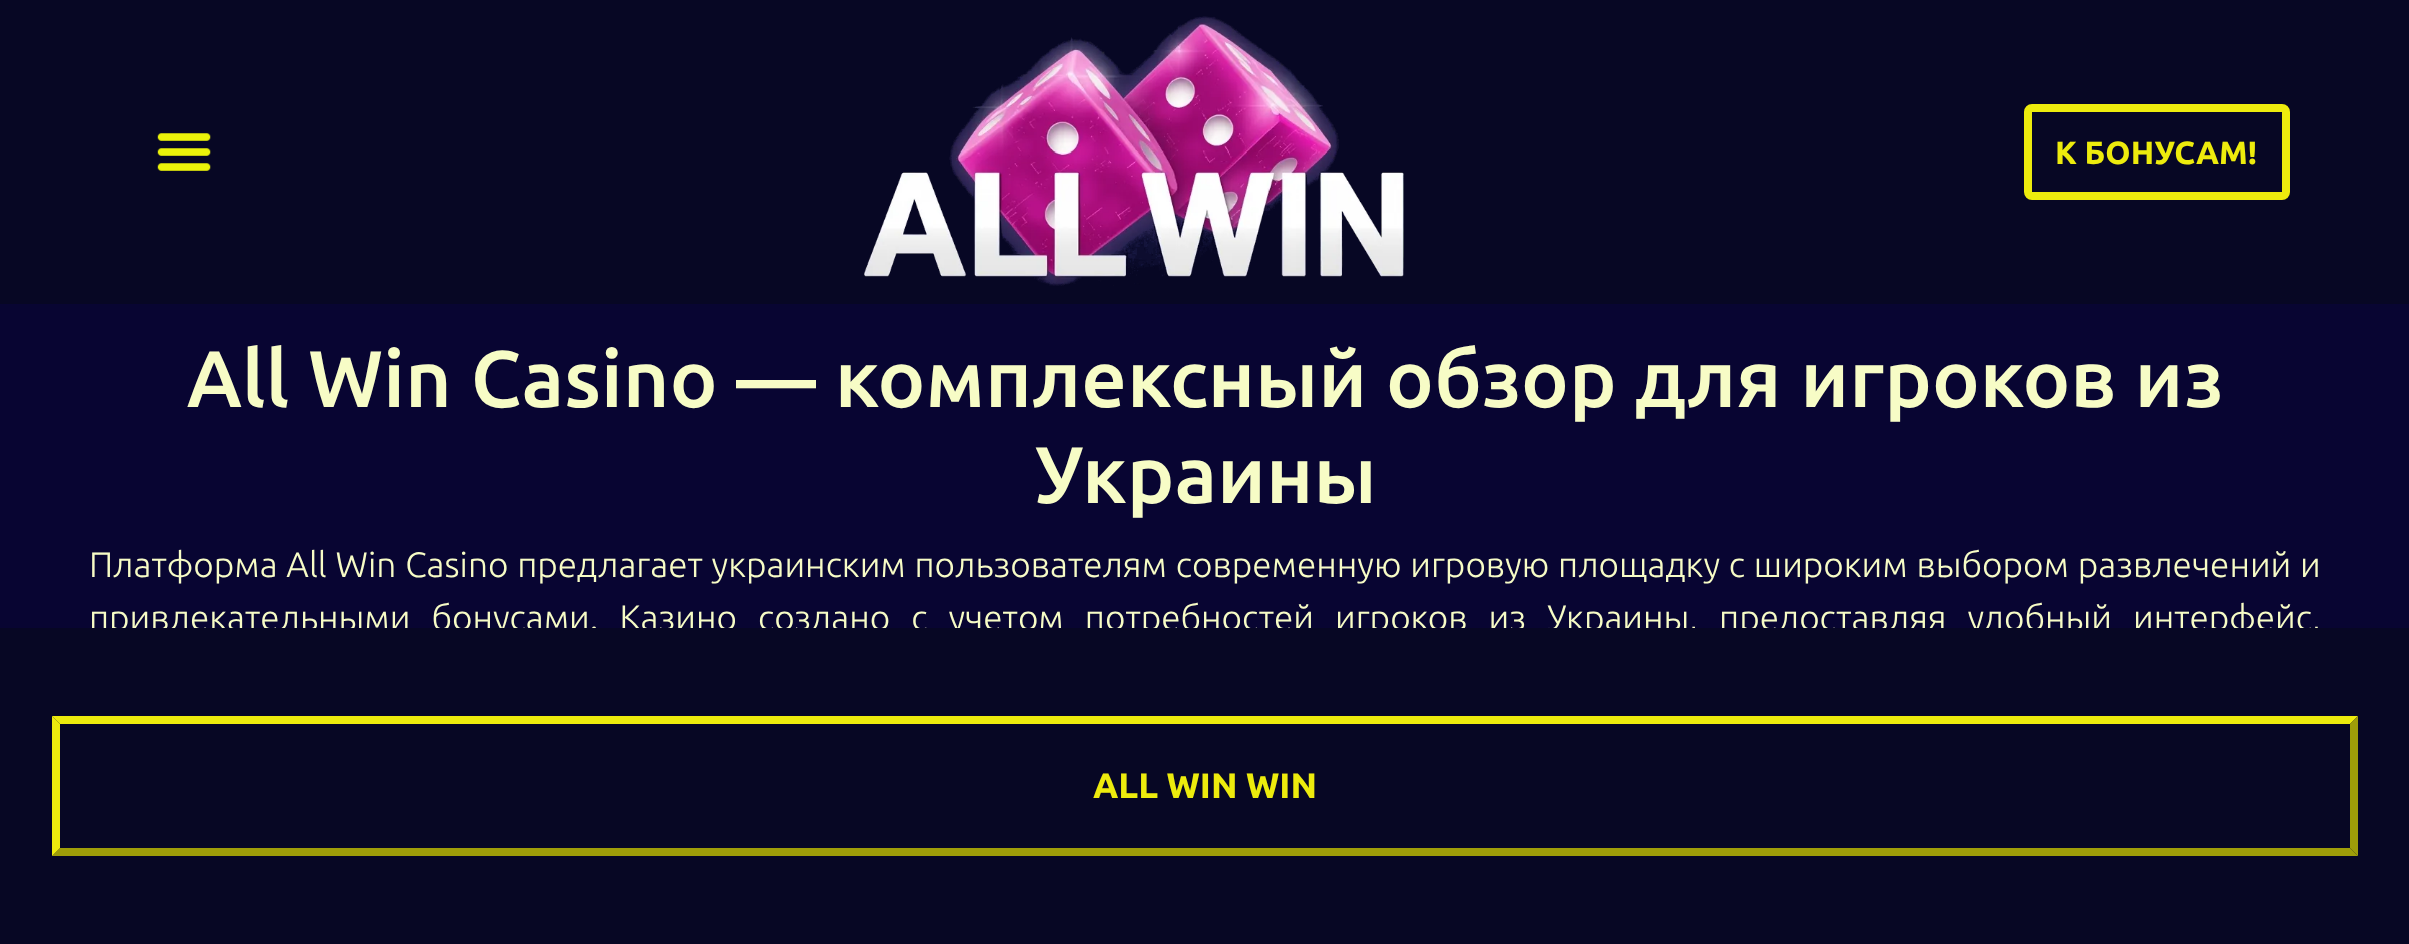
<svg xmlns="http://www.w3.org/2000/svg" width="2409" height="944">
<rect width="100%" height="100%" fill="#080532"/>
<rect width="2409" height="304" fill="#070724"/>
<image x="157" y="133" width="54" height="38" href="media/1.png"/>
<image x="864" y="16" width="540" height="270" href="media/2.png"/>
<rect x="2028" y="108" width="258" height="88" rx="4" fill="none" stroke="#edeb0d" stroke-width="8"/>
<text x="2055" y="164" style="font-family:Ubuntu;font-size:32px;font-weight:bold;fill:#edeb0d">К БОНУСАМ!</text>
<text x="187" y="407" style="font-family:Ubuntu;font-size:80px;font-weight:500;fill:#f7fcc6">All Win Casino — комплексный обзор для игроков из</text>
<text x="1034" y="503" style="font-family:Ubuntu;font-size:80px;font-weight:500;fill:#f7fcc6">Украины</text>
<text x="89" y="577" word-spacing="0.75" style="font-family:Ubuntu;font-size:35.2px;font-weight:300;fill:#f7fcc6">Платформа All Win Casino предлагает украинским пользователям современную игровую площадку с широким выбором развлечений и</text>
<text x="89" y="630" word-spacing="13" style="font-family:Ubuntu;font-size:35.2px;font-weight:300;fill:#f7fcc6">привлекательными бонусами. Казино создано с учетом потребностей игроков из Украины, предоставляя удобный интерфейс,</text>
<rect y="628" width="2409" height="316" fill="#070724"/>
<path d="M52 716h2306l-8 8h-2290z" fill="#edeb0d"/>
<path d="M2358 716v140l-8-8v-124z" fill="#9e9d09"/>
<path d="M2358 856h-2306l8-8h2290z" fill="#9e9d09"/>
<path d="M52 856v-140l8 8v124z" fill="#edeb0d"/>
<text x="1093" y="798" style="font-family:Ubuntu;font-size:35.2px;font-weight:bold;fill:#edeb0d">ALL WIN WIN</text>
</svg>
